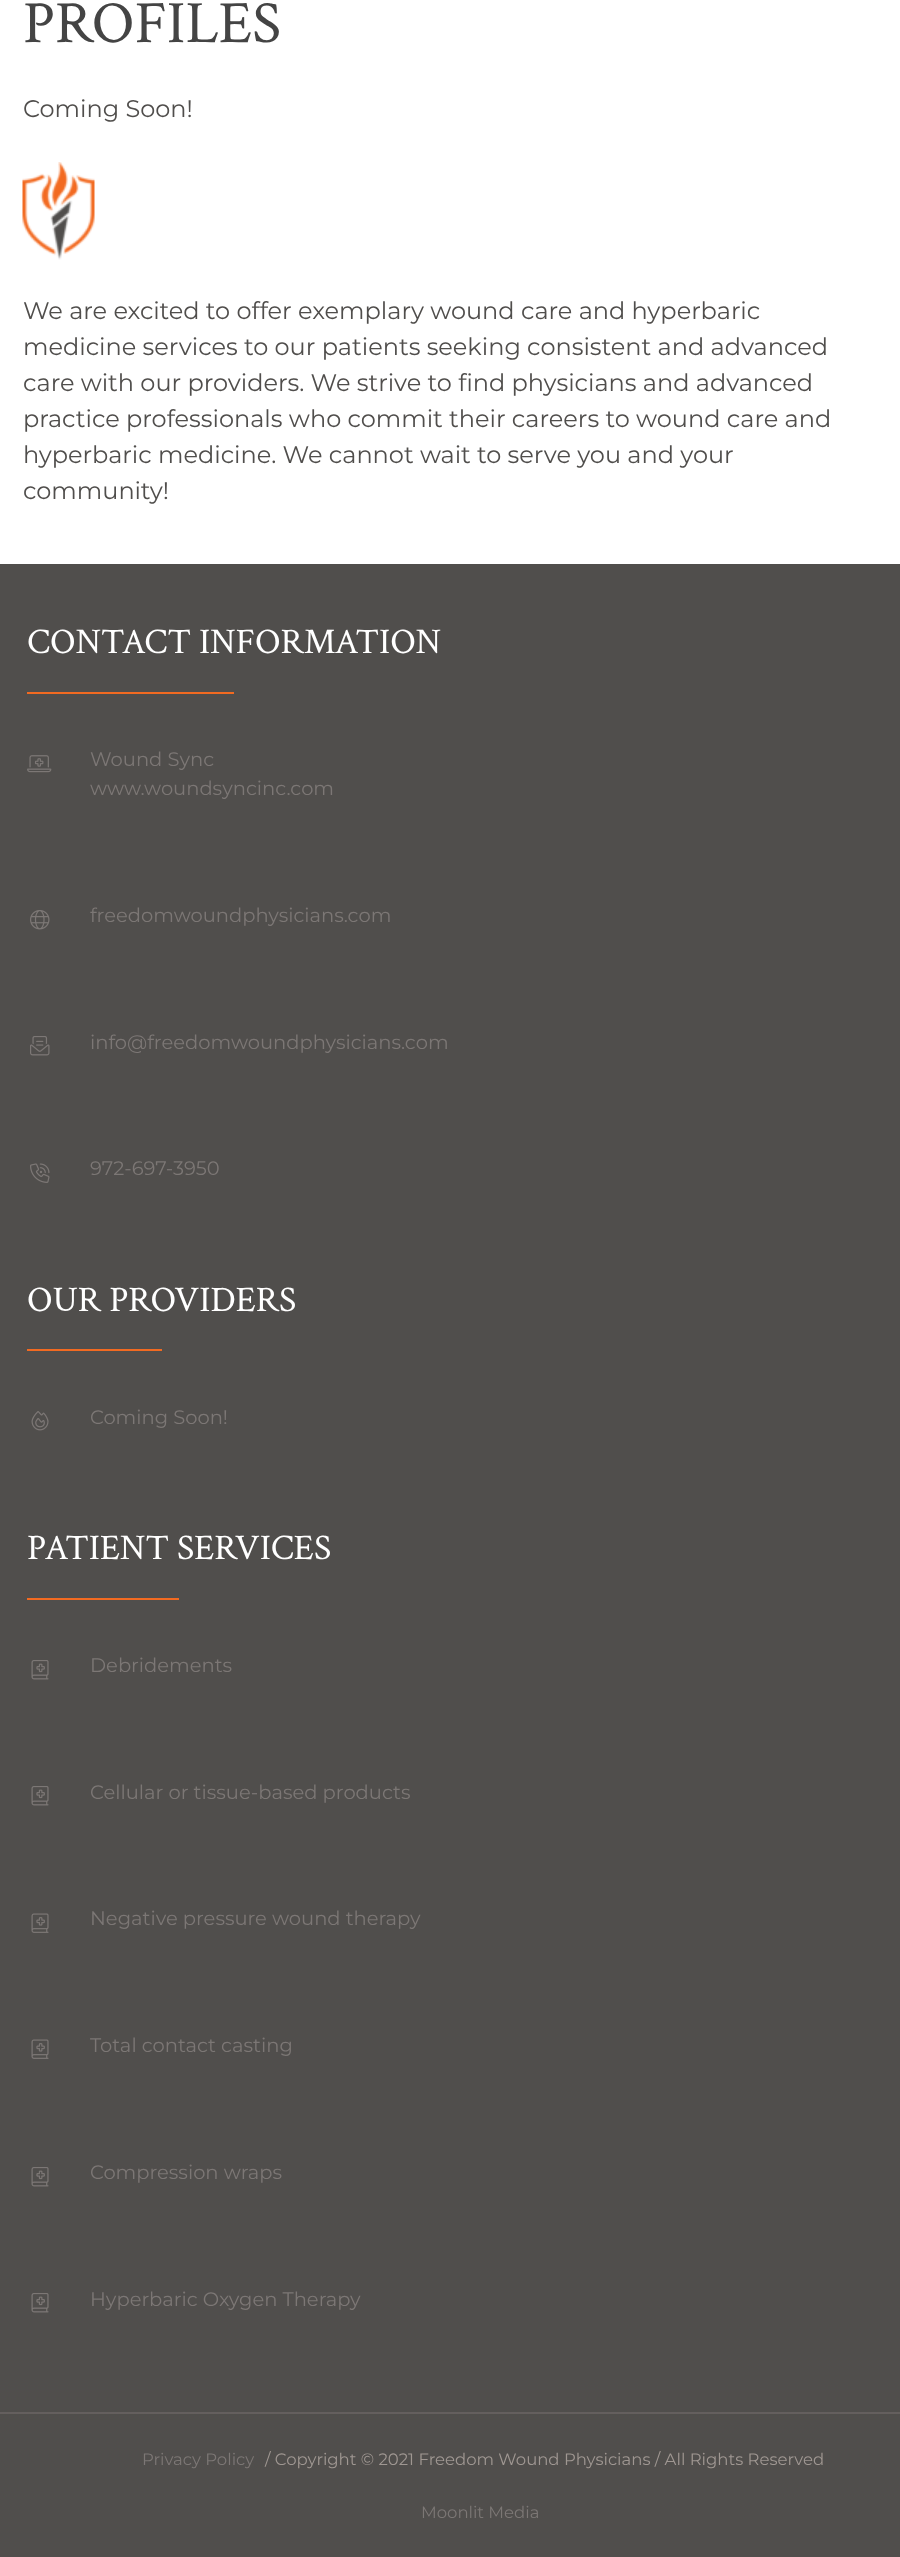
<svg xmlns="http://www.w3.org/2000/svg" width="900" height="2557">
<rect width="100%" height="100%" fill="#fff"/>
<text x="23" y="42" style="font-family:Crimson Text;font-size:60px;fill:#444">PROFILES</text>
<text x="23" y="117" style="font-family:Montserrat;font-size:24px;fill:#504e4c">Coming Soon!</text>
<image x="22" y="162" width="73" height="98" href="media/1.png"/>
<text x="23" y="319" style="font-family:Montserrat;font-size:24px;fill:#504e4c">We are excited to offer exemplary wound care and hyperbaric</text>
<text x="23" y="355" style="font-family:Montserrat;font-size:24px;fill:#504e4c">medicine services to our patients seeking consistent and advanced</text>
<text x="23" y="391" style="font-family:Montserrat;font-size:24px;fill:#504e4c">care with our providers. We strive to find physicians and advanced</text>
<text x="23" y="427" style="font-family:Montserrat;font-size:24px;fill:#504e4c">practice professionals who commit their careers to wound care and</text>
<text x="23" y="463" style="font-family:Montserrat;font-size:24px;fill:#504e4c">hyperbaric medicine. We cannot wait to serve you and your</text>
<text x="23" y="499" style="font-family:Montserrat;font-size:24px;fill:#504e4c">community!</text>
<rect y="564" width="900" height="1848" fill="#504e4c"/>
<rect y="2412" width="900" height="2" fill="#645f5e"/>
<text x="27" y="653" style="font-family:Crimson Text;font-size:36px;fill:#fff">CONTACT INFORMATION</text>
<rect x="27" y="692" width="207" height="2" fill="#f26a21"/>
<image x="27" y="755" width="25" height="18" href="media/2.png"/>
<text x="90" y="766" style="font-family:Montserrat;font-size:19.5px;fill:#7c7775">Wound Sync</text>
<text x="90" y="795" style="font-family:Montserrat;font-size:19.5px;fill:#7c7775">www.woundsyncinc.com</text>
<image x="30" y="910" width="20" height="20" href="media/3.png"/>
<text x="90" y="922" style="font-family:Montserrat;font-size:19.5px;fill:#7c7775">freedomwoundphysicians.com</text>
<image x="30" y="1036" width="20" height="20" href="media/4.png"/>
<text x="90" y="1049" style="font-family:Montserrat;font-size:19.5px;fill:#7c7775">info@freedomwoundphysicians.com</text>
<image x="30" y="1163" width="20" height="20" href="media/5.png"/>
<text x="90" y="1175" style="font-family:Montserrat;font-size:19.5px;fill:#7c7775">972-697-3950</text>
<text x="27" y="1311" style="font-family:Crimson Text;font-size:36px;fill:#fff">OUR PROVIDERS</text>
<rect x="27" y="1349" width="135" height="2" fill="#f26a21"/>
<image x="31" y="1411" width="18" height="20" href="media/6.png"/>
<text x="90" y="1424" style="font-family:Montserrat;font-size:19.5px;fill:#7c7775">Coming Soon!</text>
<text x="27" y="1559" style="font-family:Crimson Text;font-size:36px;fill:#fff">PATIENT SERVICES</text>
<rect x="27" y="1598" width="152" height="2" fill="#f26a21"/>
<image x="31" y="1660" width="18" height="20" href="media/7.png"/>
<text x="90" y="1672" style="font-family:Montserrat;font-size:19.5px;fill:#7c7775">Debridements</text>
<image x="31" y="1786" width="18" height="20" href="media/7.png"/>
<text x="90" y="1799" style="font-family:Montserrat;font-size:19.5px;fill:#7c7775">Cellular or tissue-based products</text>
<image x="31" y="1913" width="18" height="20" href="media/8.png"/>
<text x="90" y="1925" style="font-family:Montserrat;font-size:19.5px;fill:#7c7775">Negative pressure wound therapy</text>
<image x="31" y="2039" width="18" height="20" href="media/8.png"/>
<text x="90" y="2052" style="font-family:Montserrat;font-size:19.5px;fill:#7c7775">Total contact casting</text>
<image x="31" y="2167" width="18" height="20" href="media/7.png"/>
<text x="90" y="2179" style="font-family:Montserrat;font-size:19.5px;fill:#7c7775">Compression wraps</text>
<image x="31" y="2293" width="18" height="20" href="media/7.png"/>
<text x="90" y="2306" style="font-family:Montserrat;font-size:19.5px;fill:#7c7775">Hyperbaric Oxygen Therapy</text>
<rect y="2414" width="900" height="143" fill="#504e4c"/>
<text x="142" y="2465" style="font-family:Montserrat;font-size:16.5px;fill:#7c7775">Privacy Policy</text>
<text x="265" y="2465" style="font-family:Montserrat;font-size:16.5px;fill:#9f9792">/ Copyright © 2021 Freedom Wound Physicians / All Rights Reserved</text>
<text x="421" y="2518" style="font-family:Montserrat;font-size:16.5px;fill:#7c7775">Moonlit Media</text>
</svg>
